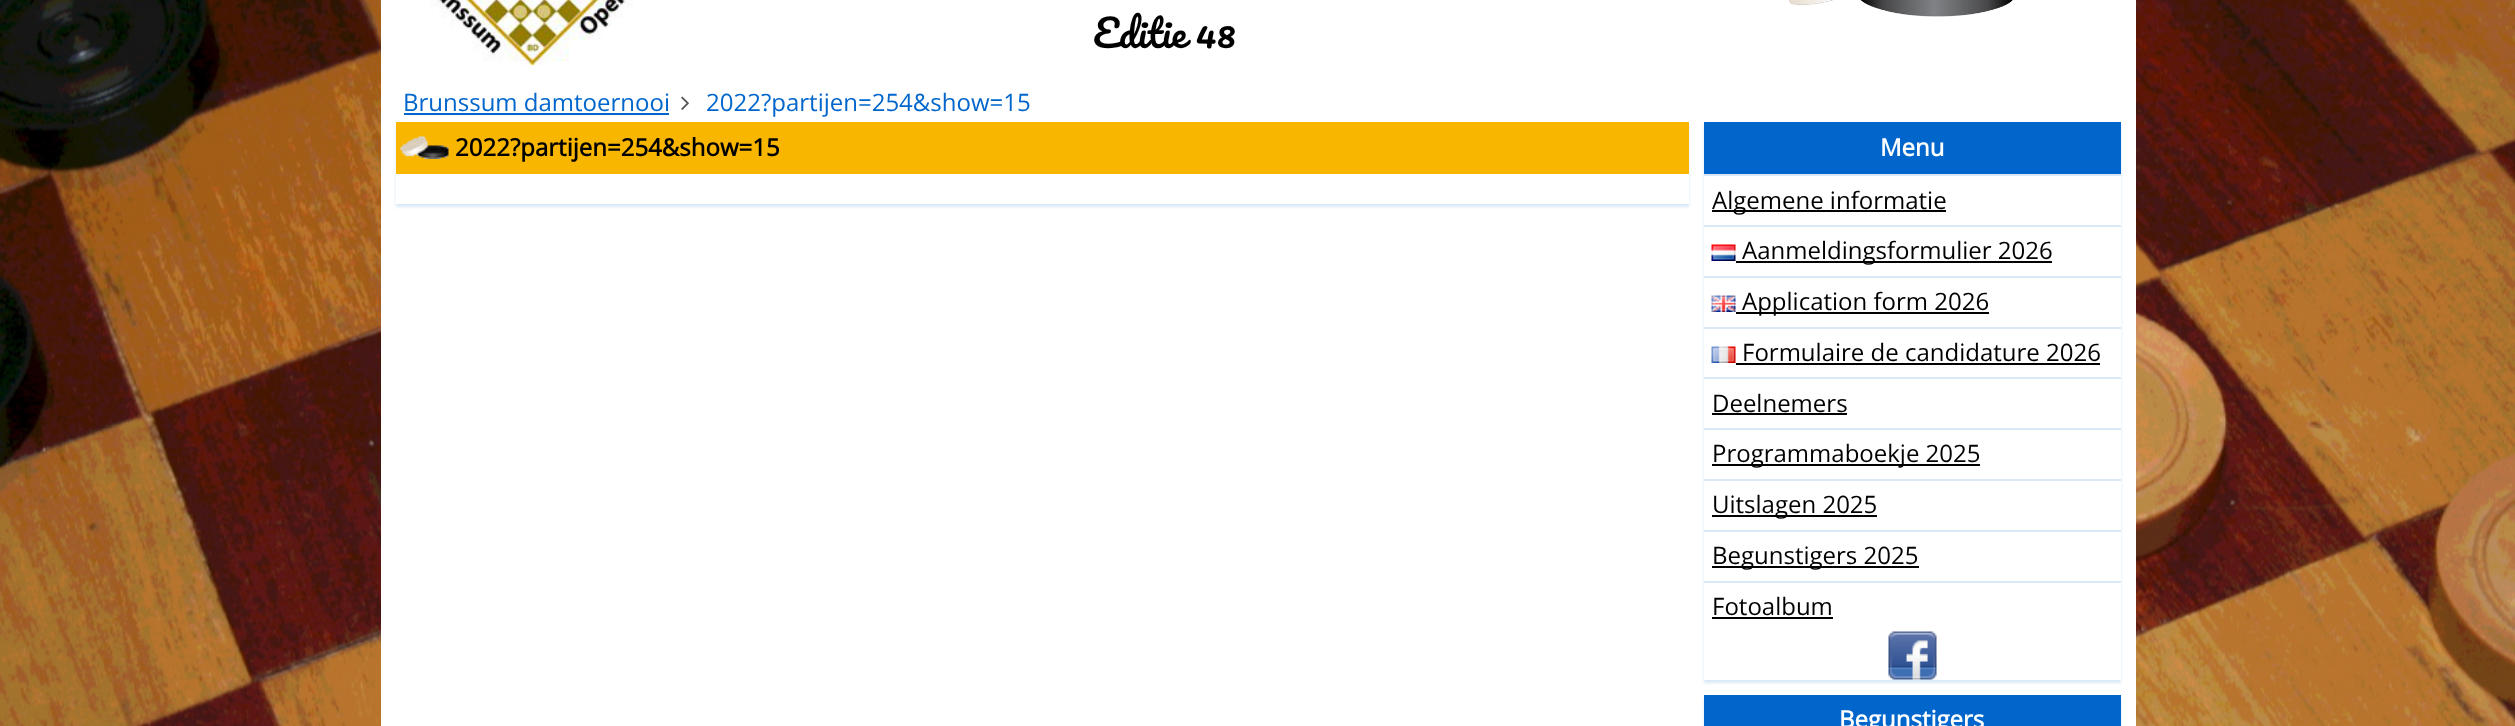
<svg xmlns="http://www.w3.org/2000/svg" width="2515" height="726">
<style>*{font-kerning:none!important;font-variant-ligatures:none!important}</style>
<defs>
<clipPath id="clip1"><path d="M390 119h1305v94h-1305zm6 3h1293v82h-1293z" clip-rule="evenodd"/></clipPath>
<clipPath id="clip2"><path d="M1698 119h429v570h-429zm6 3h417v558h-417z" clip-rule="evenodd"/></clipPath>
</defs>
<rect width="100%" height="100%" fill="#fff"/>
<image x="0" y="0" width="2515" height="726" href="media/1.png"/>
<rect x="381" width="1755" height="84" fill="#fff"/>
<image x="430" y="0" width="204" height="66" href="media/2.png"/>
<image x="1789" y="0" width="224" height="17" href="media/3.png"/>
<text x="1093" y="48" word-spacing="-1" style="font-family:Pacifico;font-size:37.5px;fill:#000">Editie 48</text>
<rect x="381" y="84" width="1755" height="642" fill="#fff"/>
<text x="403" y="111" style="font-family:Open Sans;font-size:24px;fill:#06c">Brunssum damtoernooi</text>
<rect x="404" y="113" width="265" height="2" fill="#06c"/>
<image x="681" y="96" width="8" height="14" href="media/4.png"/>
<text x="706" y="111" style="font-family:Open Sans;font-size:24px;fill:#06c">2022?partijen=254&amp;show=15</text>
<g clip-path="url(#clip1)">
<rect x="396" y="125" width="1293" height="82" fill="#0066cc26" filter="blur(1.5px)"/>
</g>
<rect x="396" y="122" width="1293" height="52" fill="#f9b600"/>
<image x="400" y="136" width="49" height="23" href="media/5.png"/>
<text x="455" y="156" style="font-family:Open Sans;font-size:24px;font-weight:bold;fill:#000">2022?partijen=254&amp;show=15</text>
<g clip-path="url(#clip2)">
<rect x="1704" y="125" width="417" height="558" fill="#0066cc26" filter="blur(1.5px)"/>
</g>
<rect x="1704" y="122" width="417" height="52" fill="#06c"/>
<text x="1880" y="156" style="font-family:Open Sans;font-size:24px;font-weight:bold;fill:#fff">Menu</text>
<rect x="1704" y="174" width="417" height="2" fill="#d9e8f7"/>
<rect x="1712" y="210" width="234" height="2" fill="#000"/>
<text x="1712" y="209" style="font-family:Open Sans;font-size:24px;fill:#000">Algemene informatie</text>
<rect x="1704" y="225" width="417" height="2" fill="#d9e8f7"/>
<image x="1711" y="244" width="25" height="17" href="media/6.png"/>
<rect x="1736" y="261" width="316" height="2" fill="#000"/>
<text x="1742" y="259" style="font-family:Open Sans;font-size:24px;fill:#000">Aanmeldingsformulier 2026</text>
<rect x="1704" y="276" width="417" height="2" fill="#d9e8f7"/>
<image x="1711" y="295" width="25" height="17" href="media/7.png"/>
<rect x="1736" y="312" width="253" height="2" fill="#000"/>
<text x="1742" y="310" style="font-family:Open Sans;font-size:24px;fill:#000">Application form 2026</text>
<rect x="1704" y="327" width="417" height="2" fill="#d9e8f7"/>
<image x="1711" y="346" width="25" height="17" href="media/8.png"/>
<text x="1742" y="361" style="font-family:Open Sans;font-size:24px;fill:#000">Formulaire de candidature 2026</text>
<rect x="1736" y="363" width="364" height="2" fill="#000"/>
<rect x="1704" y="377" width="417" height="2" fill="#d9e8f7"/>
<text x="1712" y="412" style="font-family:Open Sans;font-size:24px;fill:#000">Deelnemers</text>
<rect x="1712" y="413" width="135" height="2" fill="#000"/>
<rect x="1704" y="428" width="417" height="2" fill="#d9e8f7"/>
<rect x="1712" y="464" width="268" height="2" fill="#000"/>
<text x="1712" y="462" style="font-family:Open Sans;font-size:24px;fill:#000">Programmaboekje 2025</text>
<rect x="1704" y="479" width="417" height="2" fill="#d9e8f7"/>
<rect x="1712" y="515" width="165" height="2" fill="#000"/>
<text x="1712" y="513" style="font-family:Open Sans;font-size:24px;fill:#000">Uitslagen 2025</text>
<rect x="1704" y="530" width="417" height="2" fill="#d9e8f7"/>
<rect x="1712" y="566" width="207" height="2" fill="#000"/>
<text x="1712" y="564" style="font-family:Open Sans;font-size:24px;fill:#000">Begunstigers 2025</text>
<rect x="1704" y="581" width="417" height="2" fill="#d9e8f7"/>
<text x="1712" y="615" style="font-family:Open Sans;font-size:24px;fill:#000">Fotoalbum</text>
<rect x="1712" y="617" width="121" height="2" fill="#000"/>
<image x="1888" y="631" width="49" height="49" href="media/9.png"/>
<rect x="1704" y="698" width="417" height="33" fill="#0066cc26" filter="blur(1.5px)"/>
<rect x="1704" y="695" width="417" height="31" fill="#06c"/>
<text x="1839" y="728" style="font-family:Open Sans;font-size:24px;font-weight:bold;fill:#fff">Begunstigers</text>
</svg>
